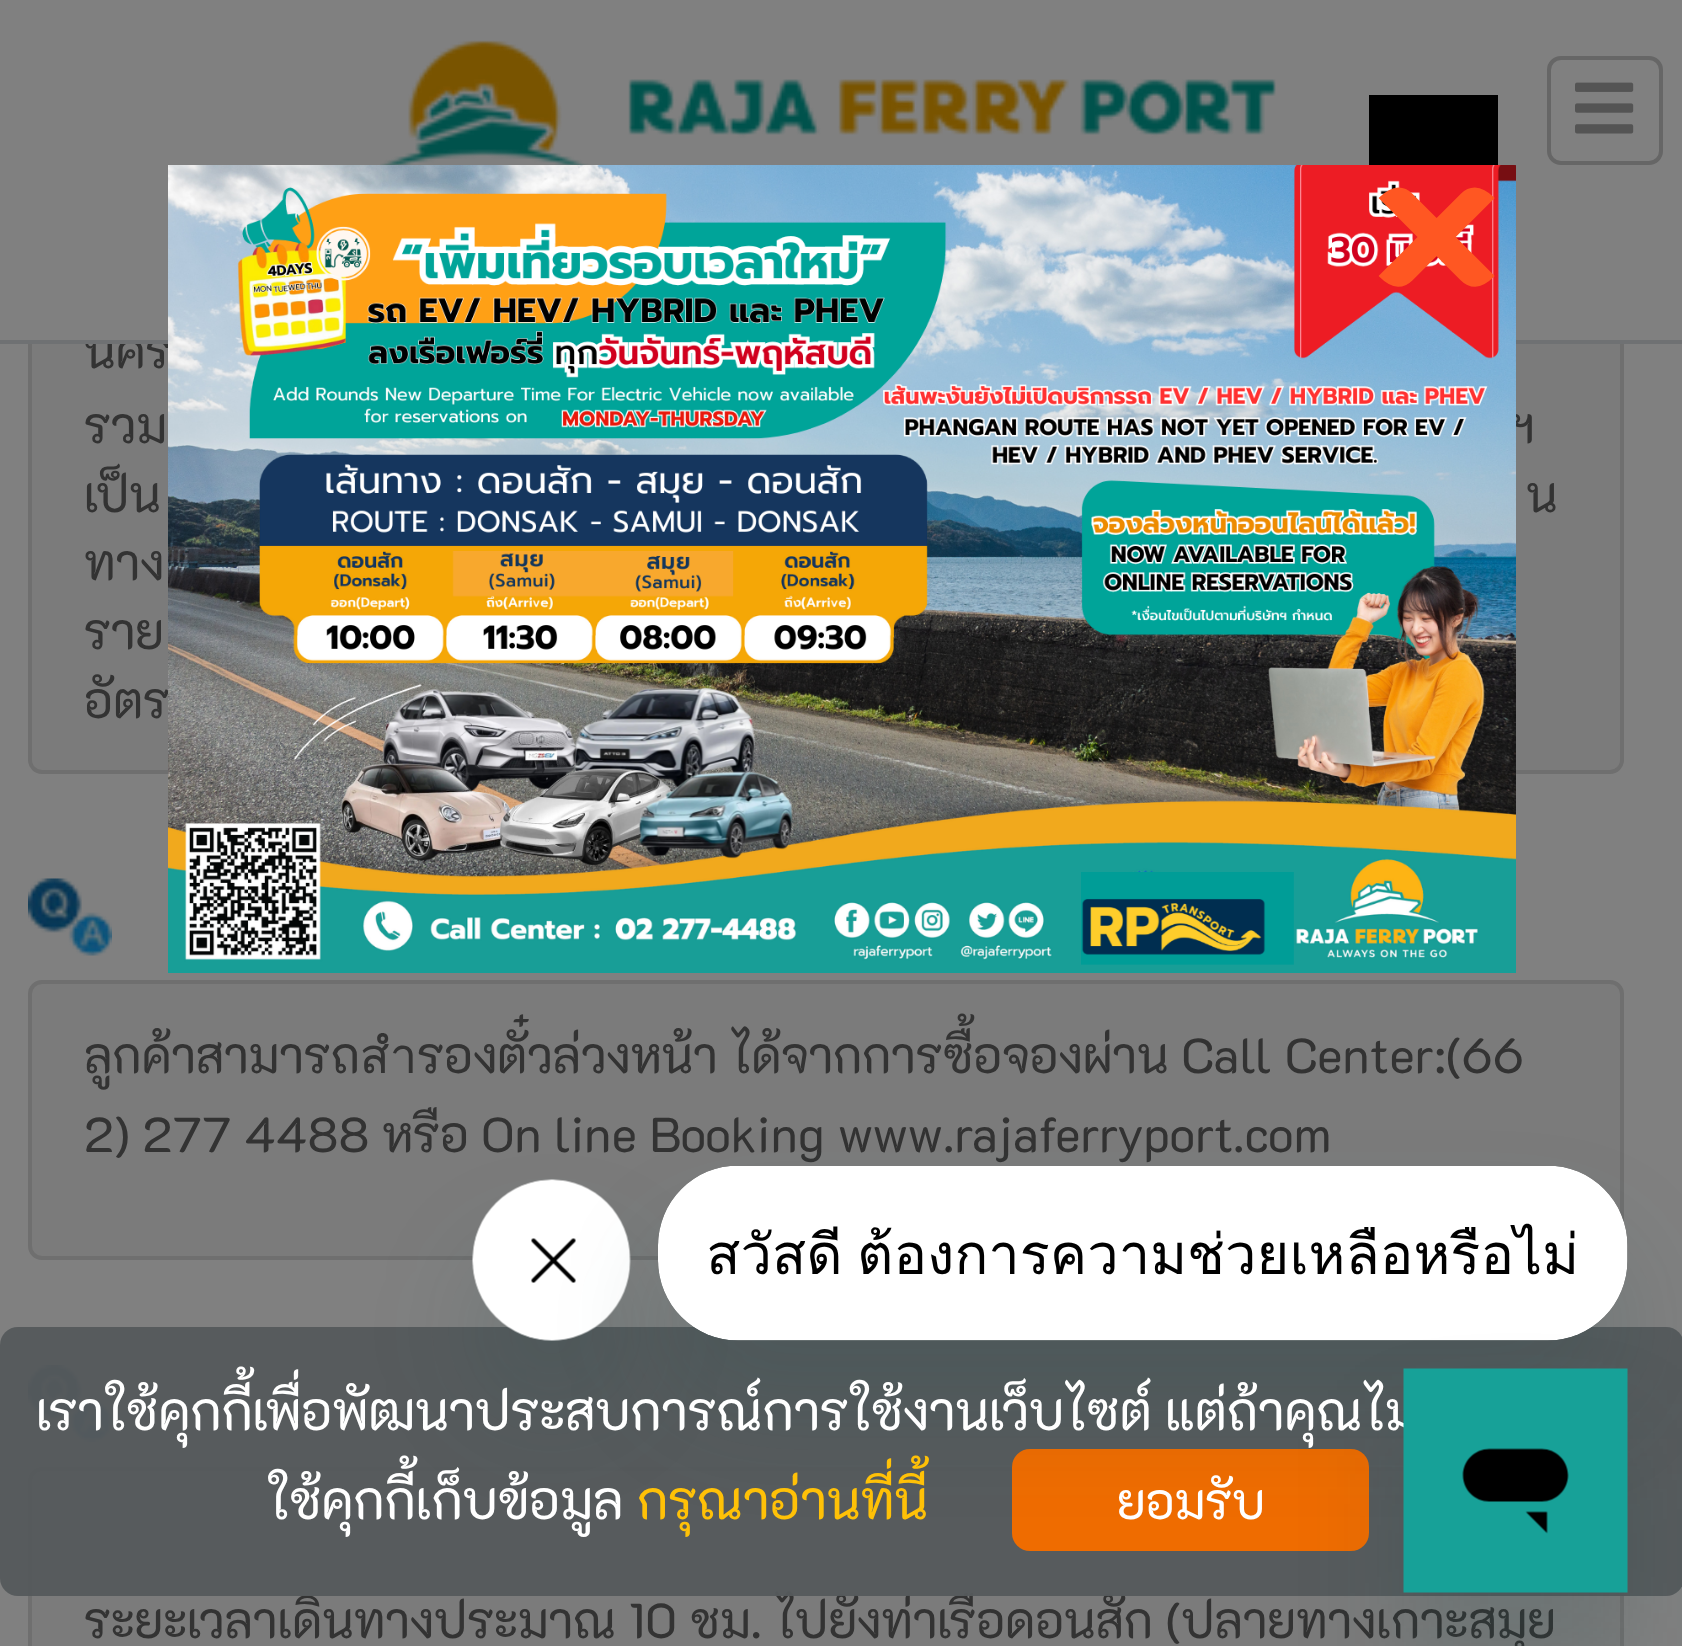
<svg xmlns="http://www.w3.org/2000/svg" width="1682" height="1646">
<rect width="100%" height="100%" fill="#808080"/>
<rect x="30" y="118" width="1592" height="654" rx="12" fill="#7b7b7b" stroke="#6f6f6f" stroke-width="4"/>
<text x="84" y="368" style="font-family:'K2D';font-size:49px;fill:#333">นคร</text>
<rect x="28" y="116" width="1596" height="224" fill="#808080"/>
<rect y="340" width="1682" height="4" fill="#6f7173"/>
<image x="380" y="40" width="896" height="125" href="media/1.png"/>
<rect x="1549" y="58" width="112" height="105" rx="12" fill="none" stroke="#666" stroke-width="4"/>
<image x="1575" y="82" width="59" height="52" href="media/2.png"/>
<rect x="1369" y="95" width="129" height="70" fill="#000"/>
<text x="1508" y="443" style="font-family:'K2D';font-size:49px;fill:#333">ฯ</text>
<text x="84" y="718" style="font-family:'K2D';font-size:49px;fill:#333">อัตร</text>
<image x="168" y="165" width="1348" height="808" href="media/3.png"/>
<text x="1369" y="312" style="font-family:'K2D';font-size:245px;font-weight:bold;fill:#ff5722">×</text>
<text x="84" y="443" style="font-family:'K2D';font-size:49px;fill:#333">รวม</text>
<text x="84" y="512" style="font-family:'K2D';font-size:49px;fill:#333">เป็น</text>
<text x="1526" y="512" style="font-family:'K2D';font-size:49px;fill:#333">น</text>
<text x="84" y="580" style="font-family:'K2D';font-size:49px;fill:#333">ทาง</text>
<text x="84" y="649" style="font-family:'K2D';font-size:49px;fill:#333">ราย</text>
<image x="28" y="878" width="84" height="78" href="media/4.png"/>
<rect x="30" y="982" width="1592" height="276" rx="12" fill="#7b7b7b" stroke="#6f6f6f" stroke-width="4"/>
<text x="84" y="1073" style="font-family:'K2D';font-size:49px;fill:#333">ลูกค้าสามารถสำรองตั๋วล่วงหน้า ได้จากการซื้อจองผ่าน Call Center:(66</text>
<text x="84" y="1152" style="font-family:'K2D';font-size:49px;fill:#333">2) 277 4488 หรือ On line Booking www.rajaferryport.com</text>
<image x="28" y="1365" width="84" height="77" href="media/5.png"/>
<rect x="30" y="1469" width="1592" height="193" rx="12" fill="#7b7b7b" stroke="#6f6f6f" stroke-width="4"/>
<text x="84" y="1638" style="font-family:'K2D';font-size:49px;fill:#333">ระยะเวลาเดินทางประมาณ 10 ชม. ไปยังท่าเรือดอนสัก (ปลายทางเกาะสมุย</text>
<rect y="1327" width="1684" height="269" rx="18" fill="#55595cf5"/>
<rect x="473" y="1250" width="157" height="161" rx="78.5" fill="#17494d26" filter="blur(52.5px)"/>
<image x="472" y="1179" width="159" height="162" href="media/7.png"/>
<rect x="1012" y="1449" width="357" height="102" rx="18" fill="#ef6c00"/>
<rect x="658" y="1236" width="970" height="175" rx="81" fill="#17494d26" filter="blur(52.5px)"/>
<image x="658" y="1166" width="970" height="175" href="media/6.png"/>
<rect x="1404" y="1439" width="224" height="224" fill="#17494d26" filter="blur(52.5px)"/>
<text x="36" y="1430" style="font-family:'K2D';font-size:52.5px;fill:#fff">เราใช้คุกกี้เพื่อพัฒนาประสบการณ์การใช้งานเว็บไซต์ แต่ถ้าคุณไม่</text>
<image x="1403" y="1368" width="225" height="225" href="media/8.png"/>
<text x="267" y="1519" style="font-family:'K2D';font-size:52.5px;fill:#fff">ใช้คุกกี้เก็บข้อมูล</text>
<text x="637" y="1519" style="font-family:'K2D';font-size:52.5px;fill:#ffc107">กรุณาอ่านที่นี้</text>
<text x="1117" y="1519" style="font-family:'K2D';font-size:49px;fill:#fff">ยอมรับ</text>
</svg>
